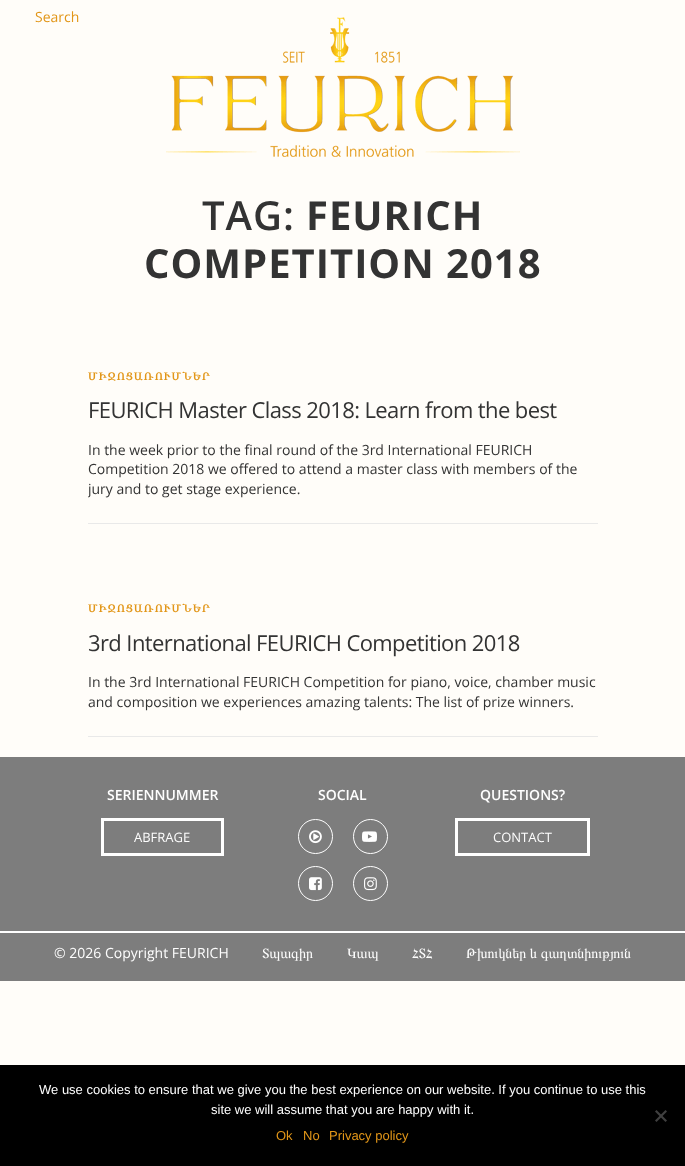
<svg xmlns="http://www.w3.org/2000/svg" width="685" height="1166">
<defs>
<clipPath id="clip1"><rect x="88" y="368" width="510" height="130"/></clipPath>
</defs>
<rect width="100%" height="100%" fill="#fffdf9"/>
<text x="35" y="22" style="font-family:Open Sans;font-size:14px;fill:#e29618">Search</text>
<image x="166" y="17" width="354" height="140" href="media/1.png"/>
<text x="202" y="230" style="font-family:Open Sans;font-size:40px;font-weight:600;letter-spacing:1px;fill:#333">TAG:</text>
<text x="306" y="230" style="font-family:Open Sans;font-size:40px;font-weight:bold;letter-spacing:1px;fill:#333">FEURICH</text>
<text x="144" y="278" style="font-family:Open Sans;font-size:40px;font-weight:bold;letter-spacing:1px;fill:#333">COMPETITION 2018</text>
<text x="88" y="380" style="font-family:FreeSerif;font-size:11px;font-weight:bold;letter-spacing:1.25px;fill:#e29618">ՄԻՋՈՑԱՌՈՒՄՆԵՐ</text>
<text x="88" y="418" style="font-family:Open Sans;font-size:22px;letter-spacing:-0.6px;fill:#333">FEURICH Master Class 2018: Learn from the best</text>
<text x="88" y="455" style="font-family:Open Sans;font-size:14px;fill:#333">In the week prior to the final round of the 3rd International FEURICH</text>
<text x="88" y="474" style="font-family:Open Sans;font-size:14px;fill:#333">Competition 2018 we offered to attend a master class with members of the</text>
<g clip-path="url(#clip1)">
<text x="88" y="494" style="font-family:Open Sans;font-size:14px;fill:#333">jury and to get stage experience.</text>
</g>
<rect x="88" y="523" width="510" height="1" fill="#e9e9e9"/>
<rect x="88" y="736" width="510" height="1" fill="#e9e9e9"/>
<text x="88" y="612" style="font-family:FreeSerif;font-size:11px;font-weight:bold;letter-spacing:1.25px;fill:#e29618">ՄԻՋՈՑԱՌՈՒՄՆԵՐ</text>
<text x="88" y="651" style="font-family:Open Sans;font-size:22px;letter-spacing:-0.6px;fill:#333">3rd International FEURICH Competition 2018</text>
<text x="88" y="687" style="font-family:Open Sans;font-size:14px;fill:#333">In the 3rd International FEURICH Competition for piano, voice, chamber music</text>
<text x="88" y="707" style="font-family:Open Sans;font-size:14px;fill:#333">and composition we experiences amazing talents: The list of prize winners.</text>
<rect y="757" width="685" height="224" fill="#7d7d7d"/>
<text x="107" y="800" style="font-family:Open Sans;font-size:14px;font-weight:600;fill:#fefefe">SERIENNUMMER</text>
<rect x="102.5" y="819.5" width="120" height="35" fill="none" stroke="#fff" stroke-width="3"/>
<text x="134" y="842" style="font-family:Open Sans;font-size:13px;fill:#fefefe">ABFRAGE</text>
<text x="318" y="800" style="font-family:Open Sans;font-size:14px;font-weight:600;fill:#fefefe">SOCIAL</text>
<circle cx="315.5" cy="836.5" r="17" fill="none" stroke="#fff"/>
<image x="309" y="830" width="13" height="14" href="media/2.png"/>
<circle cx="370.5" cy="836.5" r="17" fill="none" stroke="#fff"/>
<image x="362" y="831" width="15" height="11" href="media/3.png"/>
<circle cx="315.5" cy="883.5" r="17" fill="none" stroke="#fff"/>
<image x="309" y="877" width="13" height="14" href="media/4.png"/>
<circle cx="370.5" cy="883.5" r="17" fill="none" stroke="#fff"/>
<image x="364" y="877" width="13" height="14" href="media/5.png"/>
<text x="480" y="800" style="font-family:Open Sans;font-size:14px;font-weight:600;fill:#fefefe">QUESTIONS?</text>
<rect x="456.5" y="819.5" width="132" height="35" fill="none" stroke="#fff" stroke-width="3"/>
<text x="493" y="842" style="font-family:Open Sans;font-size:13px;fill:#fefefe">CONTACT</text>
<rect y="931" width="685" height="2" fill="#fefefe"/>
<text x="54" y="958" style="font-family:Open Sans;font-size:14px;fill:#fefefe">© 2026 Copyright FEURICH</text>
<text x="262" y="958" style="font-family:FreeSerif;font-size:14px;fill:#fefefe">Տպագիր</text>
<text x="347" y="958" style="font-family:FreeSerif;font-size:14px;fill:#fefefe">Կապ</text>
<text x="412" y="958" style="font-family:FreeSerif;font-size:14px;fill:#fefefe">ՀՏՀ</text>
<text x="466" y="958" style="font-family:FreeSerif;font-size:14px;fill:#fefefe">Թխուկներ և գաղտնիություն</text>
<rect y="1065" width="685" height="101" fill="#000"/>
<text x="39" y="1094" style="font-family:Liberation Sans;font-size:13px;fill:#fefefe">We use cookies to ensure that we give you the best experience on our website. If you continue to use this</text>
<text x="211" y="1114" style="font-family:Liberation Sans;font-size:13px;fill:#fefefe">site we will assume that you are happy with it.</text>
<path d="M665.5 1110l1.5 1.5l-10.5 10.5l-1.5-1.5z" fill="#404040"/>
<path d="M655 1111.5l1.5-1.5l10.5 10.5l-1.5 1.5z" fill="#404040"/>
<text x="276" y="1140" style="font-family:Liberation Sans;font-size:13px;fill:#e29618">Ok</text>
<text x="303" y="1140" style="font-family:Liberation Sans;font-size:13px;fill:#e29618">No</text>
<text x="329" y="1140" style="font-family:Liberation Sans;font-size:13px;fill:#e29618">Privacy policy</text>
</svg>
